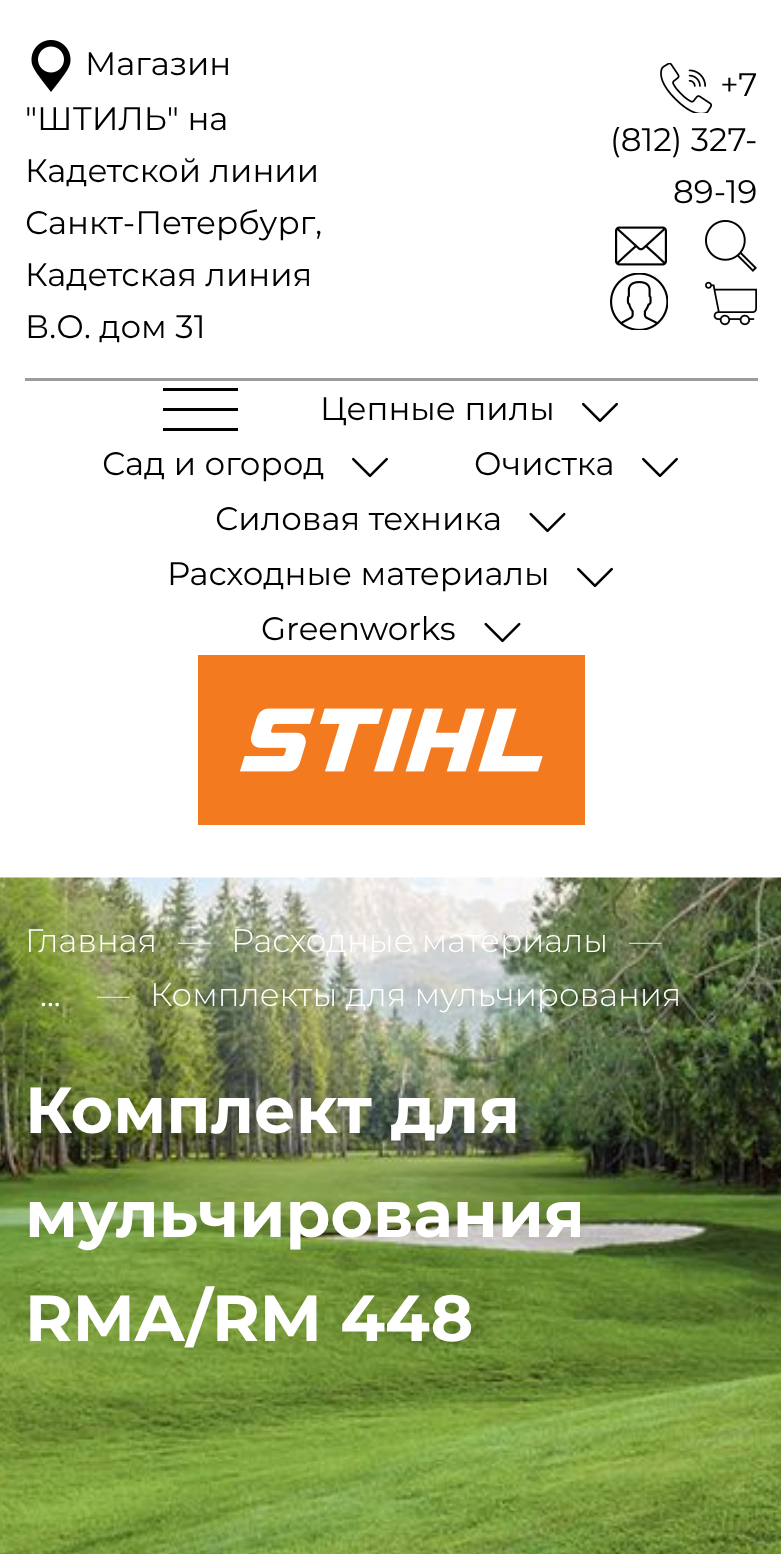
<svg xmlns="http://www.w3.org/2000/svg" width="781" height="1554">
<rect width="100%" height="100%" fill="#fff"/>
<image x="31" y="40" width="40" height="52" href="media/1.png"/>
<text x="85" y="75" style="font-family:Montserrat;font-size:32.5px;fill:#000">Магазин</text>
<text x="25" y="130" style="font-family:Montserrat;font-size:32.5px;fill:#000">"ШТИЛЬ" на</text>
<text x="25" y="182" style="font-family:Montserrat;font-size:32.5px;fill:#000">Кадетской линии</text>
<text x="25" y="234" style="font-family:Montserrat;font-size:32.5px;fill:#000">Санкт-Петербург,</text>
<text x="25" y="286" style="font-family:Montserrat;font-size:32.5px;fill:#000">Кадетская линия</text>
<text x="25" y="338" style="font-family:Montserrat;font-size:32.5px;fill:#000">В.О. дом 31</text>
<image x="660" y="63" width="53" height="50" href="media/2.png"/>
<text x="720" y="96" style="font-family:Montserrat;font-size:32.5px;fill:#000">+7</text>
<text x="610" y="151" style="font-family:Montserrat;font-size:32.5px;fill:#000">(812) 327-</text>
<text x="673" y="203" style="font-family:Montserrat;font-size:32.5px;fill:#000">89-19</text>
<image x="615" y="226" width="52" height="40" href="media/3.png"/>
<image x="705" y="220" width="52" height="52" href="media/4.png"/>
<image x="610" y="273" width="58" height="57" href="media/5.png"/>
<image x="705" y="281" width="52" height="45" href="media/6.png"/>
<rect x="25" y="378" width="733" height="3" fill="#9c9c9c"/>
<rect x="163" y="388" width="75" height="3" fill="#000"/>
<rect x="163" y="408" width="75" height="3" fill="#000"/>
<rect x="163" y="428" width="75" height="3" fill="#000"/>
<text x="320" y="420" style="font-family:Montserrat;font-size:32.5px;fill:#000">Цепные пилы</text>
<image x="582" y="402" width="36" height="21" href="media/7.png"/>
<text x="102" y="475" style="font-family:Montserrat;font-size:32.5px;fill:#000">Сад и огород</text>
<image x="352" y="457" width="36" height="21" href="media/7.png"/>
<text x="474" y="475" style="font-family:Montserrat;font-size:32.5px;fill:#000">Очистка</text>
<image x="642" y="457" width="36" height="21" href="media/7.png"/>
<text x="215" y="530" style="font-family:Montserrat;font-size:32.5px;fill:#000">Силовая техника</text>
<image x="529" y="512" width="37" height="21" href="media/8.png"/>
<text x="167" y="585" style="font-family:Montserrat;font-size:32.5px;fill:#000">Расходные материалы</text>
<image x="577" y="567" width="36" height="21" href="media/7.png"/>
<text x="261" y="640" style="font-family:Montserrat;font-size:32.5px;fill:#000">Greenworks</text>
<image x="484" y="622" width="37" height="21" href="media/8.png"/>
<image x="198" y="655" width="387" height="170" href="media/9.png"/>
<image x="0" y="877" width="781" height="677" href="media/10.png"/>
<text x="25" y="952" style="font-family:Montserrat;font-size:32.5px;font-weight:300;fill:#fff">Главная</text>
<text x="178" y="952" style="font-family:Montserrat;font-size:32.5px;font-weight:300;fill:#e6e9e2">—</text>
<text x="231" y="952" style="font-family:Montserrat;font-size:32.5px;font-weight:300;fill:#fff">Расходные материалы</text>
<text x="629" y="952" style="font-family:Montserrat;font-size:32.5px;font-weight:300;fill:#cfd3c8">—</text>
<text x="97" y="1006" style="font-family:Montserrat;font-size:32.5px;font-weight:300;fill:#dee2cd">—</text>
<text x="40" y="1006" style="font-family:Montserrat;font-size:32.5px;fill:#fff">...</text>
<text x="150" y="1006" style="font-family:Montserrat;font-size:32.5px;font-weight:300;fill:#fff">Комплекты для мульчирования</text>
<text x="25" y="1133" style="font-family:Montserrat;font-size:65px;font-weight:bold;fill:#fff">Комплект для</text>
<text x="25" y="1237" style="font-family:Montserrat;font-size:65px;font-weight:bold;fill:#fff">мульчирования</text>
<text x="25" y="1341" style="font-family:Montserrat;font-size:65px;font-weight:bold;fill:#fff">RMA/RM 448</text>
</svg>
